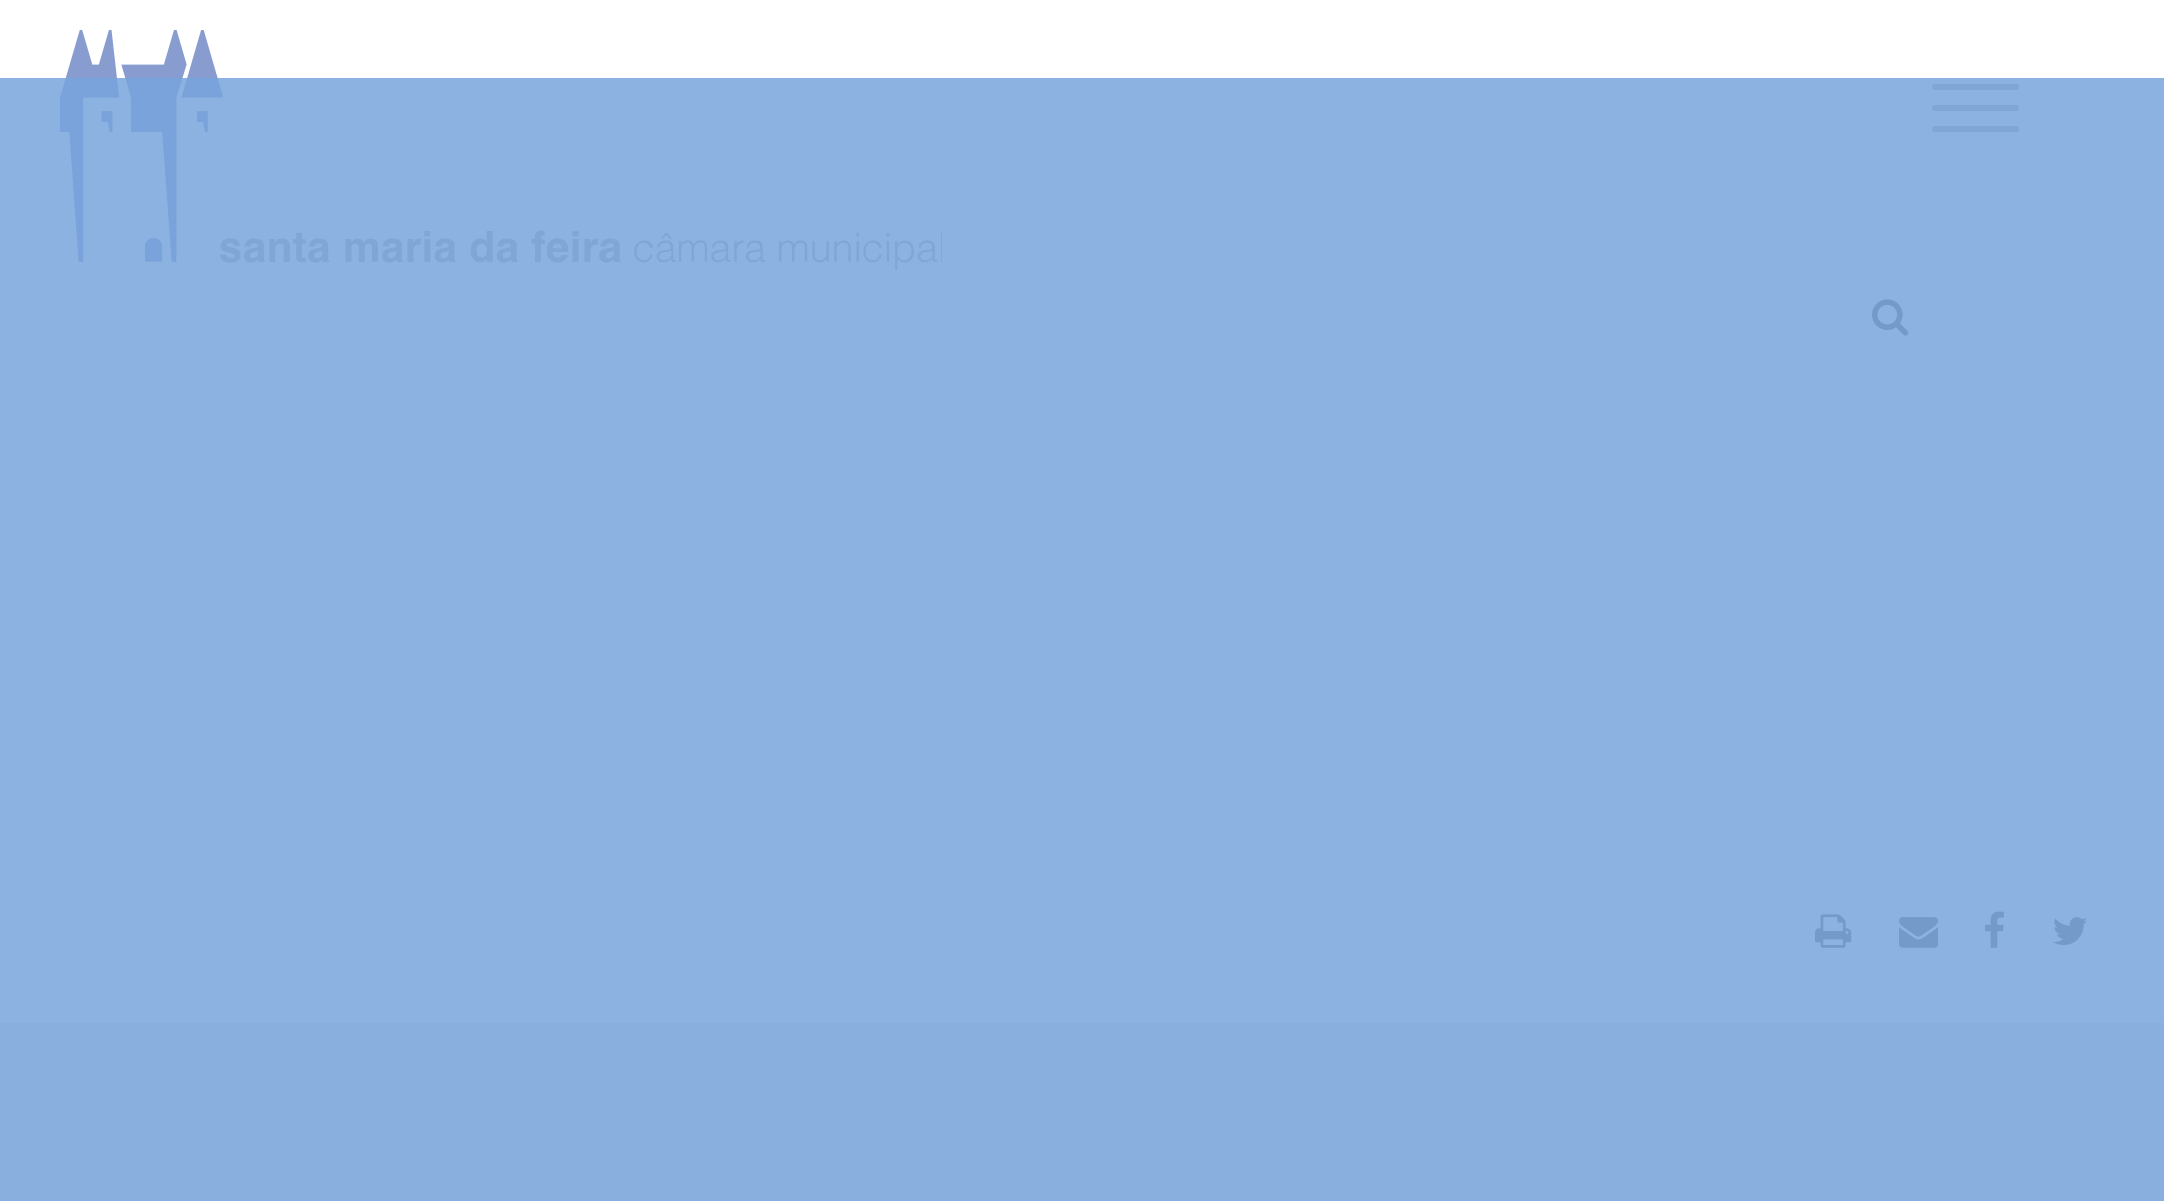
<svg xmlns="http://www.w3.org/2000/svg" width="2164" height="1201">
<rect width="100%" height="100%" fill="#fff"/>
<image x="60" y="30" width="882" height="240" href="media/1.png"/>
<rect x="1932" y="84" width="87" height="6" rx="3" fill="#afaba9"/>
<rect x="1932" y="105" width="87" height="6" rx="3" fill="#afaba9"/>
<rect x="1932" y="126" width="87" height="6" rx="3" fill="#afaba9"/>
<image x="1872" y="299" width="37" height="37" href="media/2.png"/>
<image x="1815" y="914" width="37" height="34" href="media/3.png"/>
<image x="1899" y="917" width="39" height="31" href="media/4.png"/>
<image x="1985" y="911" width="19" height="37" href="media/5.png"/>
<image x="2053" y="917" width="35" height="28" href="media/6.png"/>
<rect y="1023" width="2164" height="178" fill="#ececec"/>
<rect y="78" width="2164" height="1123" fill="#77a4dcd9"/>
</svg>
